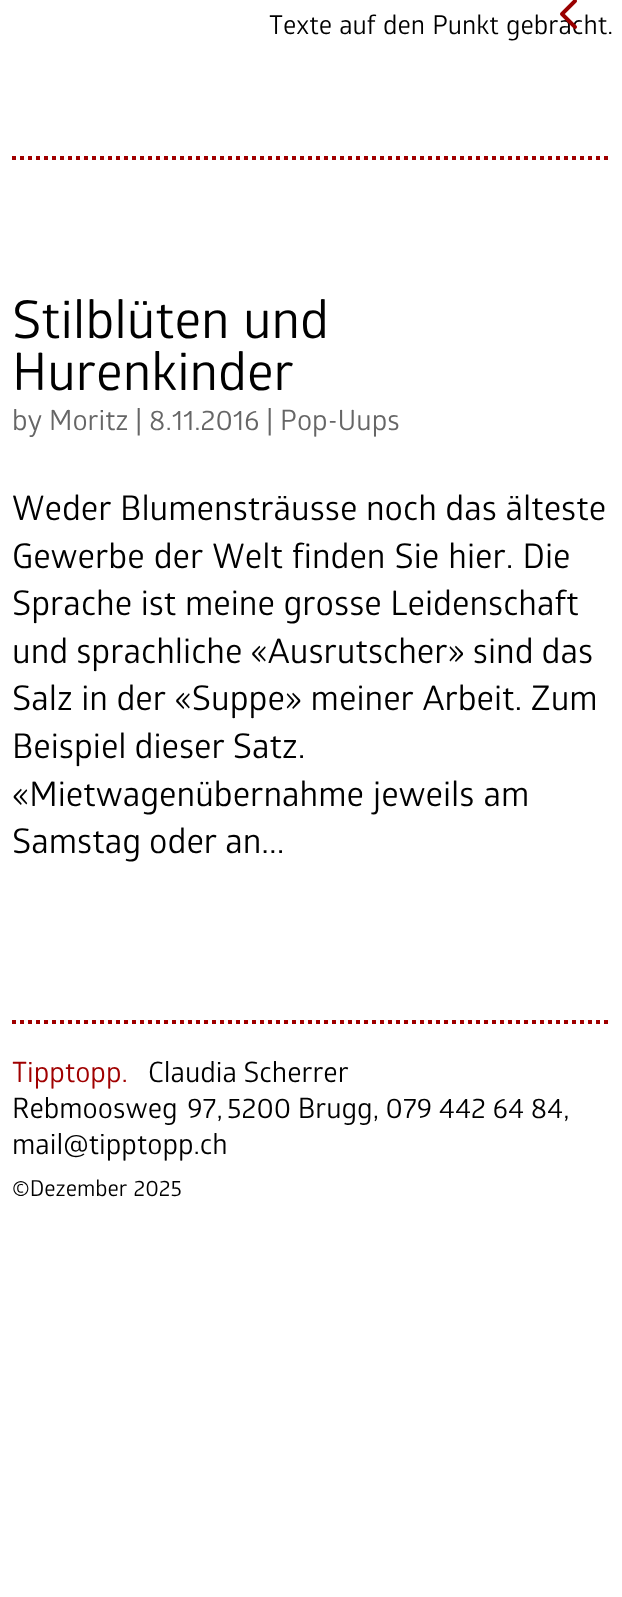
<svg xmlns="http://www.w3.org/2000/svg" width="622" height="1597">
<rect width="100%" height="100%" fill="#fff"/>
<path d="M12 158h598" fill="none" stroke="#a00000" stroke-width="4" stroke-dasharray="4 4"/>
<text x="269" y="34" word-spacing="1" style="font-family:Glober;font-size:26px;fill:#000">Texte auf den Punkt gebracht.</text>
<image x="560" y="0" width="17" height="29" href="media/1.png"/>
<text x="12" y="338" word-spacing="1" style="font-family:Glober;font-size:52px;fill:#000">Stilblüten und</text>
<text x="12" y="390" style="font-family:Glober;font-size:52px;fill:#000">Hurenkinder</text>
<text x="12" y="430" style="font-family:Glober;font-size:28px;fill:#666">by</text>
<text x="49" y="430" style="font-family:Glober;font-size:28px;fill:#666">Moritz | 8.11.2016</text>
<text x="266" y="430" style="font-family:Glober;font-size:28px;fill:#666">| Pop-Uups</text>
<text x="12" y="520" word-spacing="0.5" style="font-family:Glober;font-size:34px;fill:#000">Weder Blumensträusse noch das älteste</text>
<text x="12" y="568" word-spacing="1" style="font-family:Glober;font-size:34px;fill:#000">Gewerbe der Welt finden Sie hier. Die</text>
<text x="12" y="615" word-spacing="0.5" style="font-family:Glober;font-size:34px;fill:#000">Sprache ist meine grosse Leidenschaft</text>
<text x="12" y="663" style="font-family:Glober;font-size:34px;fill:#000">und sprachliche «Ausrutscher» sind das</text>
<text x="12" y="710" word-spacing="0.5" style="font-family:Glober;font-size:34px;fill:#000">Salz in der «Suppe» meiner Arbeit. Zum</text>
<text x="12" y="758" style="font-family:Glober;font-size:34px;fill:#000">Beispiel dieser Satz.</text>
<text x="12" y="806" word-spacing="1" style="font-family:Glober;font-size:34px;fill:#000">«Mietwagenübernahme jeweils am</text>
<text x="12" y="853" style="font-family:Glober;font-size:34px;fill:#000">Samstag oder an...</text>
<path d="M12 1022h598" fill="none" stroke="#a00000" stroke-width="4" stroke-dasharray="4 4"/>
<text x="12" y="1082" style="font-family:Glober;font-size:28px;fill:#a00000">Tipptopp.</text>
<text x="148" y="1082" style="font-family:Glober;font-size:28px;fill:#000">Claudia Scherrer</text>
<text x="12" y="1118" word-spacing="3" style="font-family:Glober;font-size:28px;fill:#000">Rebmoosweg 97,</text>
<text x="227" y="1118" style="font-family:Glober;font-size:28px;fill:#000">5200 Brugg, 079 442 64 84,</text>
<text x="12" y="1154" style="font-family:Glober;font-size:28px;fill:#000">mail@tipptopp.ch</text>
<text x="12" y="1196" word-spacing="1" style="font-family:Glober;font-size:22px;fill:#000">©Dezember 2025</text>
</svg>
